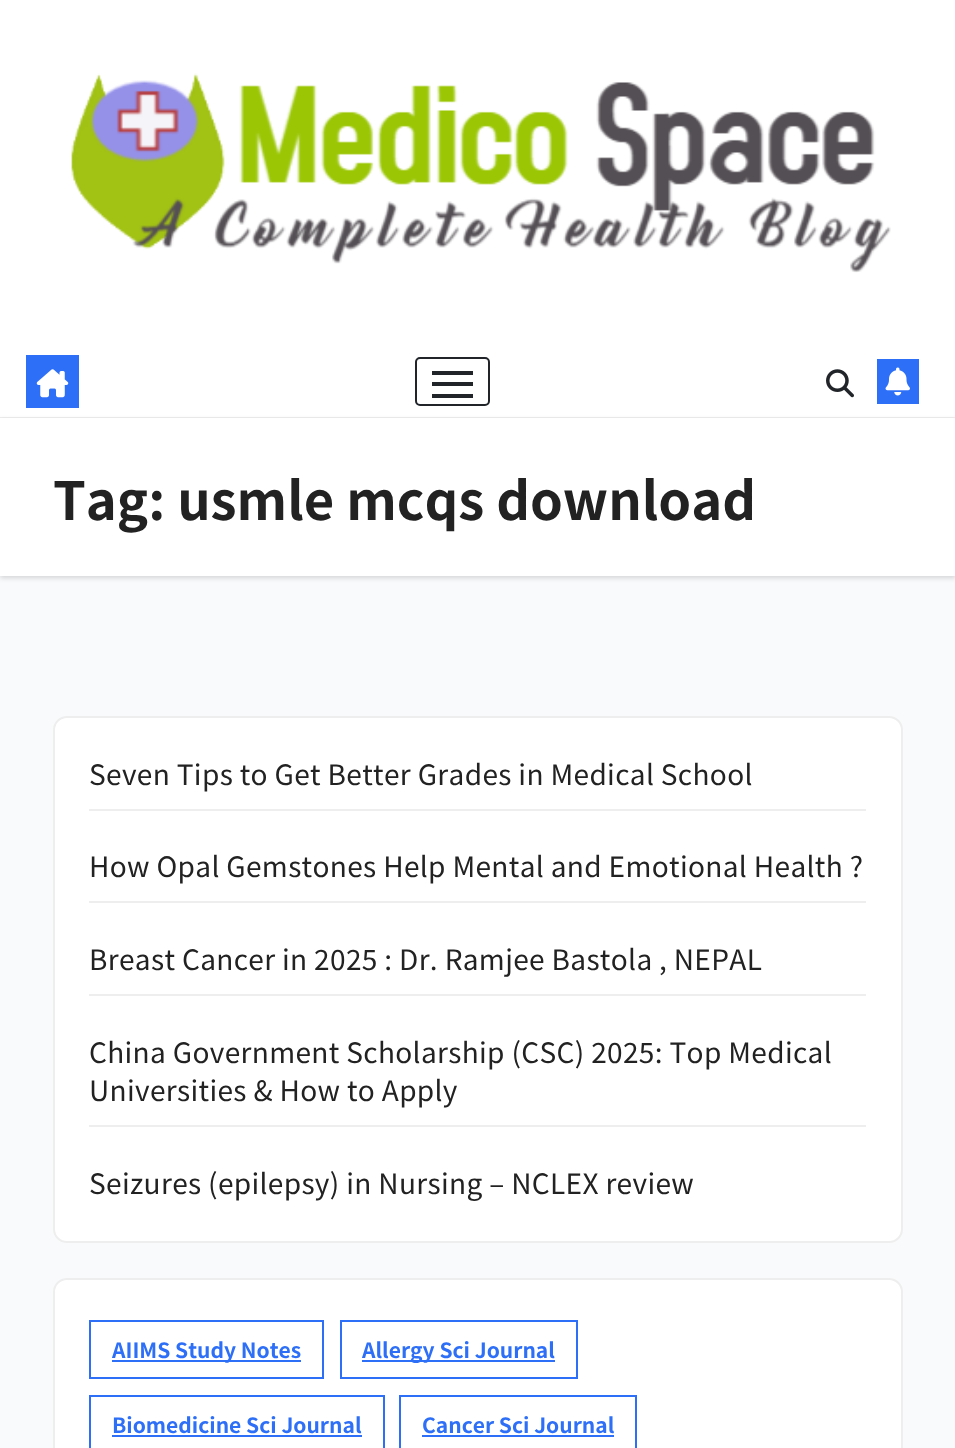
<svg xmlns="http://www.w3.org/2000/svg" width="955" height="1448">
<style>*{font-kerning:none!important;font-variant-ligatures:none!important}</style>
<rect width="100%" height="100%" fill="#f9fafb"/>
<rect width="955" height="417" fill="#fff"/>
<rect y="417" width="955" height="1" fill="#eee"/>
<image x="71" y="73" width="820" height="200" href="media/1.png"/>
<rect x="26" y="355" width="53" height="53" fill="#2d6ff7"/>
<image x="36" y="369" width="33" height="29" href="media/2.png"/>
<rect x="416" y="358" width="73" height="47" rx="4" fill="none" stroke="#212529" stroke-width="2"/>
<rect x="432" y="371" width="41" height="4" fill="#212529"/>
<rect x="432" y="382" width="41" height="4" fill="#212529"/>
<rect x="432" y="394" width="41" height="4" fill="#212529"/>
<image x="826" y="369" width="28" height="29" href="media/3.png"/>
<rect x="877" y="359" width="42" height="45" fill="#2d6ff7"/>
<image x="885" y="367" width="25" height="29" href="media/4.png"/>
<rect y="420" width="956" height="158" fill="#00000026" filter="blur(2.5px)"/>
<rect y="418" width="955" height="158" fill="#fff"/>
<text x="53" y="520" style="font-family:Noto Sans JP;font-size:52.5px;font-weight:bold;fill:#222">Tag: usmle mcqs download</text>
<rect x="54" y="717" width="848" height="525" rx="13" fill="#fff" stroke="#eee" stroke-width="2"/>
<rect x="89" y="809" width="777" height="2" fill="#eee"/>
<text x="89" y="785" style="font-family:Noto Sans JP;font-size:28px;letter-spacing:0.35px;fill:#222">Seven Tips to Get Better Grades in Medical School</text>
<rect x="89" y="901" width="777" height="2" fill="#eee"/>
<text x="89" y="877" style="font-family:Noto Sans JP;font-size:28px;letter-spacing:0.35px;fill:#222">How Opal Gemstones Help Mental and Emotional Health ?</text>
<rect x="89" y="994" width="777" height="2" fill="#eee"/>
<text x="89" y="970" style="font-family:Noto Sans JP;font-size:28px;letter-spacing:0.35px;fill:#222">Breast Cancer in 2025 : Dr. Ramjee Bastola</text>
<text x="659" y="970" style="font-family:Noto Sans JP;font-size:28px;letter-spacing:0.35px;fill:#222">, NEPAL</text>
<rect x="89" y="1125" width="777" height="2" fill="#eee"/>
<text x="89" y="1063" style="font-family:Noto Sans JP;font-size:28px;letter-spacing:0.35px;fill:#222">China Government Scholarship (CSC) 2025: Top Medical</text>
<text x="89" y="1101" style="font-family:Noto Sans JP;font-size:28px;letter-spacing:0.35px;fill:#222">Universities &amp; How to Apply</text>
<text x="89" y="1194" style="font-family:Noto Sans JP;font-size:28px;letter-spacing:0.35px;fill:#222">Seizures (epilepsy) in Nursing – NCLEX review</text>
<rect x="54" y="1279" width="848" height="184" rx="13" fill="#fff" stroke="#eee" stroke-width="2"/>
<rect x="90" y="1321" width="233" height="57" fill="none" stroke="#2d6ff7" stroke-width="2"/>
<rect x="112" y="1360" width="189" height="2" fill="#2d6ff7"/>
<text x="112" y="1358" style="font-family:Noto Sans JP;font-size:21px;font-weight:bold;fill:#2d6ff7">AIIMS Study Notes</text>
<rect x="341" y="1321" width="236" height="57" fill="none" stroke="#2d6ff7" stroke-width="2"/>
<rect x="362" y="1360" width="193" height="2" fill="#2d6ff7"/>
<text x="362" y="1358" style="font-family:Noto Sans JP;font-size:21px;font-weight:bold;fill:#2d6ff7">Allergy Sci Journal</text>
<rect x="90" y="1396" width="294" height="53" fill="none" stroke="#2d6ff7" stroke-width="2"/>
<text x="112" y="1433" style="font-family:Noto Sans JP;font-size:21px;font-weight:bold;fill:#2d6ff7">Biomedicine Sci Journal</text>
<rect x="112" y="1435" width="250" height="2" fill="#2d6ff7"/>
<rect x="400" y="1396" width="236" height="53" fill="none" stroke="#2d6ff7" stroke-width="2"/>
<text x="422" y="1433" style="font-family:Noto Sans JP;font-size:21px;font-weight:bold;fill:#2d6ff7">Cancer Sci Journal</text>
<rect x="422" y="1435" width="192" height="2" fill="#2d6ff7"/>
</svg>
